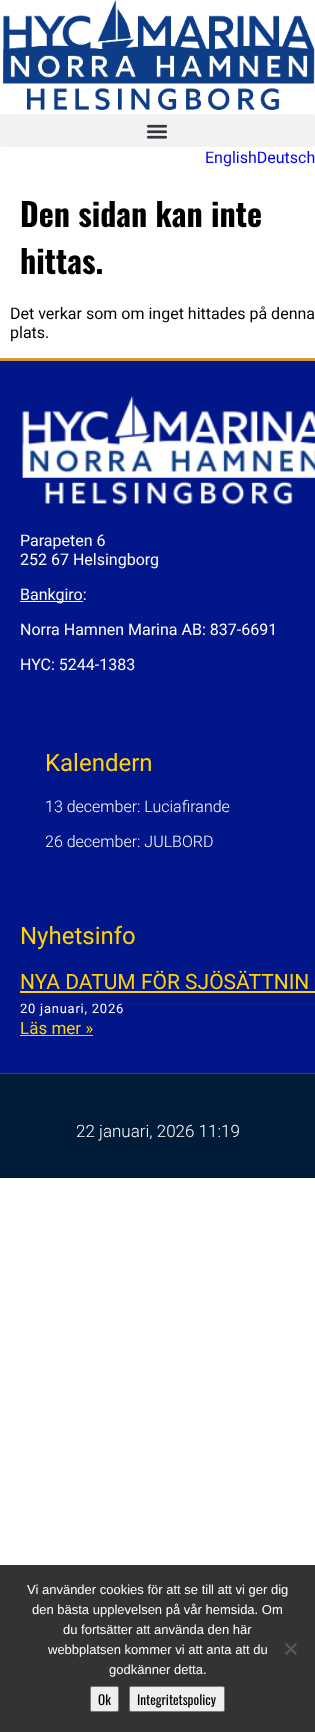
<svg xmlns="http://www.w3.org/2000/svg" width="315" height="1732">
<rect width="100%" height="100%" fill="#fff"/>
<image x="3" y="0" width="312" height="110" href="media/1.png"/>
<rect y="114" width="315" height="33" rx="3" fill="#f2f2f2"/>
<image x="146" y="124" width="22" height="15" href="media/2.png"/>
<text x="205" y="163" style="font-family:Roboto;font-size:16px;fill:#00e">EnglishDeutsch</text>
<text x="20" y="227" style="font-family:Oswald;font-size:32px;font-weight:bold;fill:#000">Den sidan kan inte</text>
<text x="20" y="274" style="font-family:Oswald;font-size:32px;font-weight:bold;fill:#000">hittas.</text>
<text x="10" y="319" style="font-family:Roboto;font-size:16px;fill:#000">Det verkar som om inget hittades på denna</text>
<text x="10" y="338" style="font-family:Roboto;font-size:16px;fill:#000">plats.</text>
<rect y="361" width="315" height="712" fill="#001689"/>
<rect y="358" width="315" height="3" fill="#d6983f"/>
<image x="22" y="396" width="293" height="109" href="media/3.png"/>
<text x="20" y="546" style="font-family:Roboto;font-size:16px;fill:#fdfdfd">Parapeten 6</text>
<text x="20" y="565" style="font-family:Roboto;font-size:16px;fill:#fdfdfd">252 67 Helsingborg</text>
<rect x="20" y="601" width="63" height="1" fill="#fdfdfd"/>
<text x="20" y="600" style="font-family:Roboto;font-size:16px;fill:#fdfdfd">Bankgiro:</text>
<text x="20" y="635" style="font-family:Roboto;font-size:16px;fill:#fdfdfd">Norra Hamnen Marina AB: 837-6691</text>
<text x="20" y="670" style="font-family:Roboto;font-size:16px;fill:#fdfdfd">HYC: 5244-1383</text>
<text x="45" y="771" style="font-family:Roboto;font-size:24px;fill:#ffd200">Kalendern</text>
<text x="45" y="812" style="font-family:Roboto;font-size:16px;font-weight:300;fill:#fdfdfd">13 december: Luciafirande</text>
<text x="45" y="847" style="font-family:Roboto;font-size:16px;font-weight:300;fill:#fdfdfd">26 december: JULBORD</text>
<text x="20" y="944" style="font-family:Roboto;font-size:24px;fill:#ffd200">Nyhetsinfo</text>
<text x="20" y="989" style="font-family:Roboto;font-size:21px;fill:#ffd200">NYA DATUM FÖR SJÖSÄTTNIN</text>
<rect x="20" y="991" width="295" height="2" fill="#ffd200"/>
<text x="20" y="1013" style="font-family:Roboto;font-size:13px;letter-spacing:0.75px;fill:#fdfdfd">20 januari, 2026</text>
<text x="20" y="1034" style="font-family:Roboto;font-size:17px;fill:#ffd200">Läs mer »</text>
<rect x="20" y="1035" width="73" height="1" fill="#ffd200"/>
<rect y="1074" width="315" height="104" fill="#001c38"/>
<rect y="1073" width="315" height="1" fill="#30475e"/>
<text x="76" y="1137" style="font-family:Roboto;font-size:17px;font-weight:300;fill:#fdfdfd">22 januari, 2026 11:19</text>
<rect y="1565" width="315" height="167" fill="#333"/>
<text x="27" y="1594" style="font-family:Liberation Sans;font-size:13px;fill:#fdfdfd">Vi använder cookies för att se till att vi ger dig</text>
<text x="32" y="1614" style="font-family:Liberation Sans;font-size:13px;fill:#fdfdfd">den bästa upplevelsen på vår hemsida. Om</text>
<text x="63" y="1634" style="font-family:Liberation Sans;font-size:13px;fill:#fdfdfd">du fortsätter att använda den här</text>
<text x="48" y="1654" style="font-family:Liberation Sans;font-size:13px;fill:#fdfdfd">webbplatsen kommer vi att anta att du</text>
<text x="109" y="1674" style="font-family:Liberation Sans;font-size:13px;fill:#fdfdfd">godkänner detta.</text>
<path d="M295.5 1643l1.5 1.5l-10.5 10.5l-1.5-1.5z" fill="#5a5a5a"/>
<path d="M285 1644.5l1.5-1.5l10.5 10.5l-1.5 1.5z" fill="#5a5a5a"/>
<rect x="90.5" y="1686.5" width="28" height="25" rx="1.5" fill="#efefef" stroke="#767676"/>
<text x="98" y="1705" style="font-family:Oswald;font-size:13.25px;fill:#000">Ok</text>
<rect x="129.5" y="1686.5" width="95" height="25" rx="1.5" fill="#efefef" stroke="#767676"/>
<text x="137" y="1705" style="font-family:Oswald;font-size:13.25px;fill:#000">Integritetspolicy</text>
</svg>
